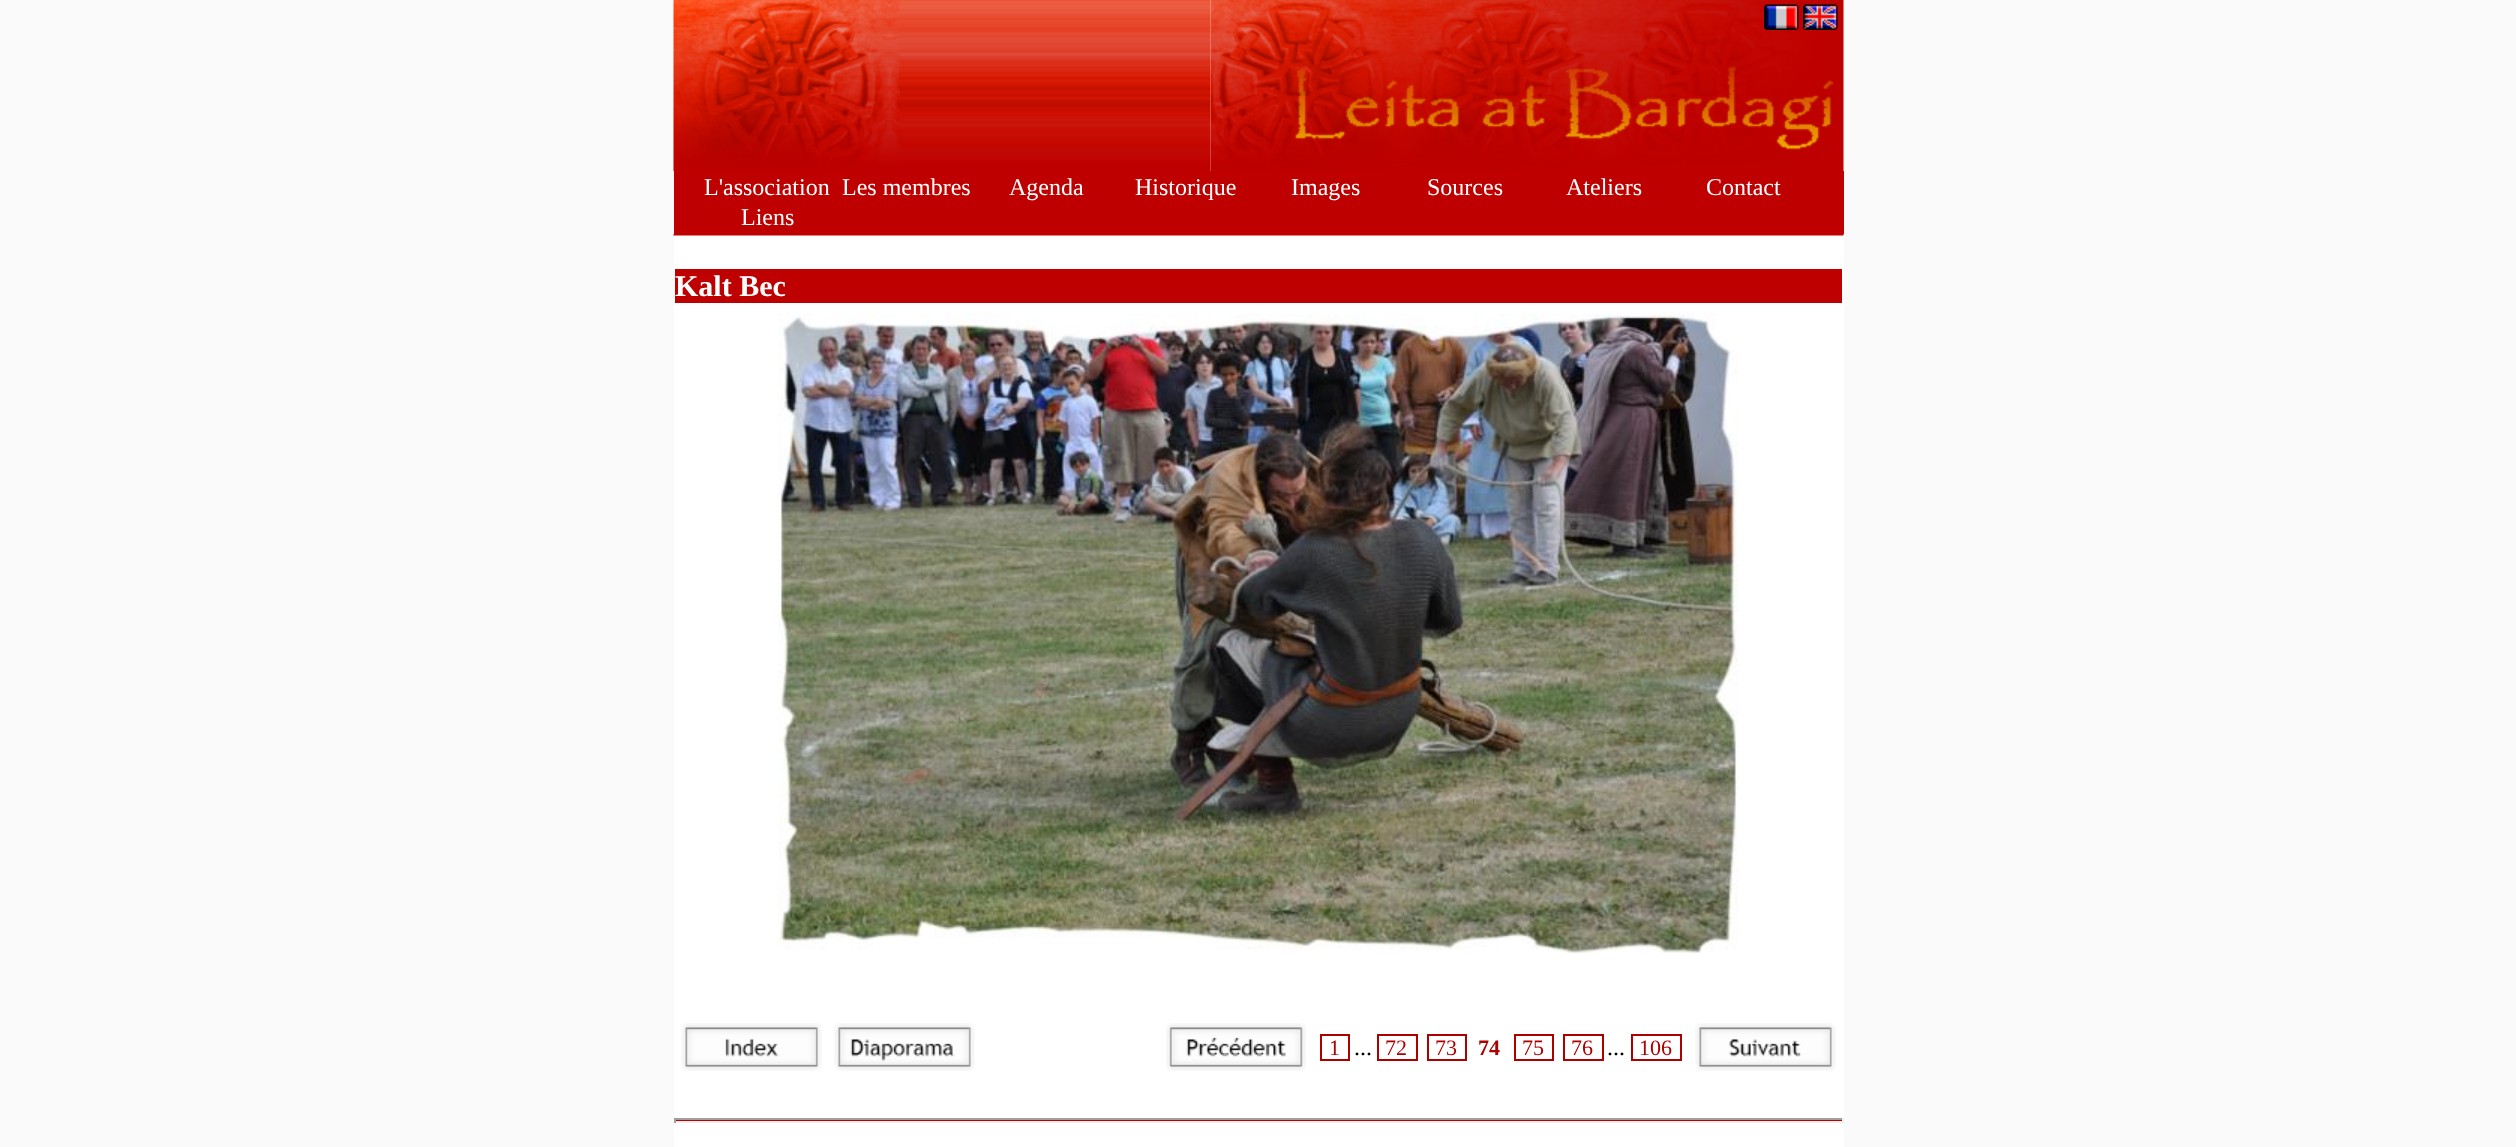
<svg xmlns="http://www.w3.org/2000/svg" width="2516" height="1147">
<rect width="100%" height="100%" fill="#fafafa"/>
<rect x="674" width="1170" height="1147" fill="#fff"/>
<image x="673" y="0" width="227" height="171" href="media/1.png"/>
<image x="900" y="0" width="311" height="171" href="media/2.png"/>
<image x="1210" y="0" width="634" height="171" href="media/3.png"/>
<image x="1764" y="4" width="35" height="26" href="media/4.png"/>
<image x="1803" y="4" width="35" height="26" href="media/5.png"/>
<rect x="674" y="171" width="1170" height="63" fill="#be0000"/>
<text x="704" y="195" style="font-family:Liberation Serif;font-size:24px;fill:#fff">L'association</text>
<text x="842" y="195" style="font-family:Liberation Serif;font-size:24px;fill:#fff">Les membres</text>
<text x="1009" y="195" style="font-family:Liberation Serif;font-size:24px;fill:#fff">Agenda</text>
<text x="1135" y="195" style="font-family:Liberation Serif;font-size:24px;fill:#fff">Historique</text>
<text x="1291" y="195" style="font-family:Liberation Serif;font-size:24px;fill:#fff">Images</text>
<text x="1427" y="195" style="font-family:Liberation Serif;font-size:24px;fill:#fff">Sources</text>
<text x="1566" y="195" style="font-family:Liberation Serif;font-size:24px;fill:#fff">Ateliers</text>
<text x="1706" y="195" style="font-family:Liberation Serif;font-size:24px;fill:#fff">Contact</text>
<text x="741" y="225" style="font-family:Liberation Serif;font-size:24px;fill:#fff">Liens</text>
<image x="673" y="234" width="1171" height="2" href="media/6.png"/>
<rect x="675" y="269" width="1167" height="34" fill="#be0000"/>
<text x="675" y="296" style="font-family:Liberation Serif;font-size:30px;font-weight:bold;fill:#fff">Kalt Bec</text>
<image x="778" y="313" width="961" height="640" href="media/7.png"/>
<image x="681" y="1023" width="141" height="48" href="media/8.png"/>
<image x="834" y="1023" width="141" height="48" href="media/9.png"/>
<image x="1166" y="1023" width="140" height="48" href="media/10.png"/>
<rect x="1321" y="1035" width="28" height="25" fill="none" stroke="#af0000" stroke-width="2"/>
<text x="1329" y="1055" style="font-family:Liberation Serif;font-size:22px;fill:#af0000">1</text>
<text x="1354" y="1055" style="font-family:Liberation Serif;font-size:24px;fill:#000">...</text>
<rect x="1378" y="1035" width="39" height="25" fill="none" stroke="#af0000" stroke-width="2"/>
<text x="1385" y="1055" style="font-family:Liberation Serif;font-size:22px;fill:#af0000">72</text>
<rect x="1428" y="1035" width="38" height="25" fill="none" stroke="#af0000" stroke-width="2"/>
<text x="1435" y="1055" style="font-family:Liberation Serif;font-size:22px;fill:#af0000">73</text>
<text x="1478" y="1055" style="font-family:Liberation Serif;font-size:22px;font-weight:bold;fill:#af0000">74</text>
<rect x="1515" y="1035" width="38" height="25" fill="none" stroke="#af0000" stroke-width="2"/>
<text x="1522" y="1055" style="font-family:Liberation Serif;font-size:22px;fill:#af0000">75</text>
<rect x="1564" y="1035" width="39" height="25" fill="none" stroke="#af0000" stroke-width="2"/>
<text x="1571" y="1055" style="font-family:Liberation Serif;font-size:22px;fill:#af0000">76</text>
<text x="1607" y="1055" style="font-family:Liberation Serif;font-size:24px;fill:#000">...</text>
<rect x="1632" y="1035" width="49" height="25" fill="none" stroke="#af0000" stroke-width="2"/>
<text x="1639" y="1055" style="font-family:Liberation Serif;font-size:22px;fill:#af0000">106</text>
<image x="1695" y="1023" width="141" height="48" href="media/11.png"/>
<rect x="674" y="1120" width="1170" height="1" fill="#be0000"/>
<rect x="674" y="1118" width="1170" height="2" fill="#9f9f9f"/>
<rect x="1842" y="1118" width="2" height="5" fill="#eee"/>
<rect x="674" y="1121" width="1170" height="2" fill="#eee"/>
<rect x="674" y="1118" width="2" height="5" fill="#9f9f9f"/>
</svg>
